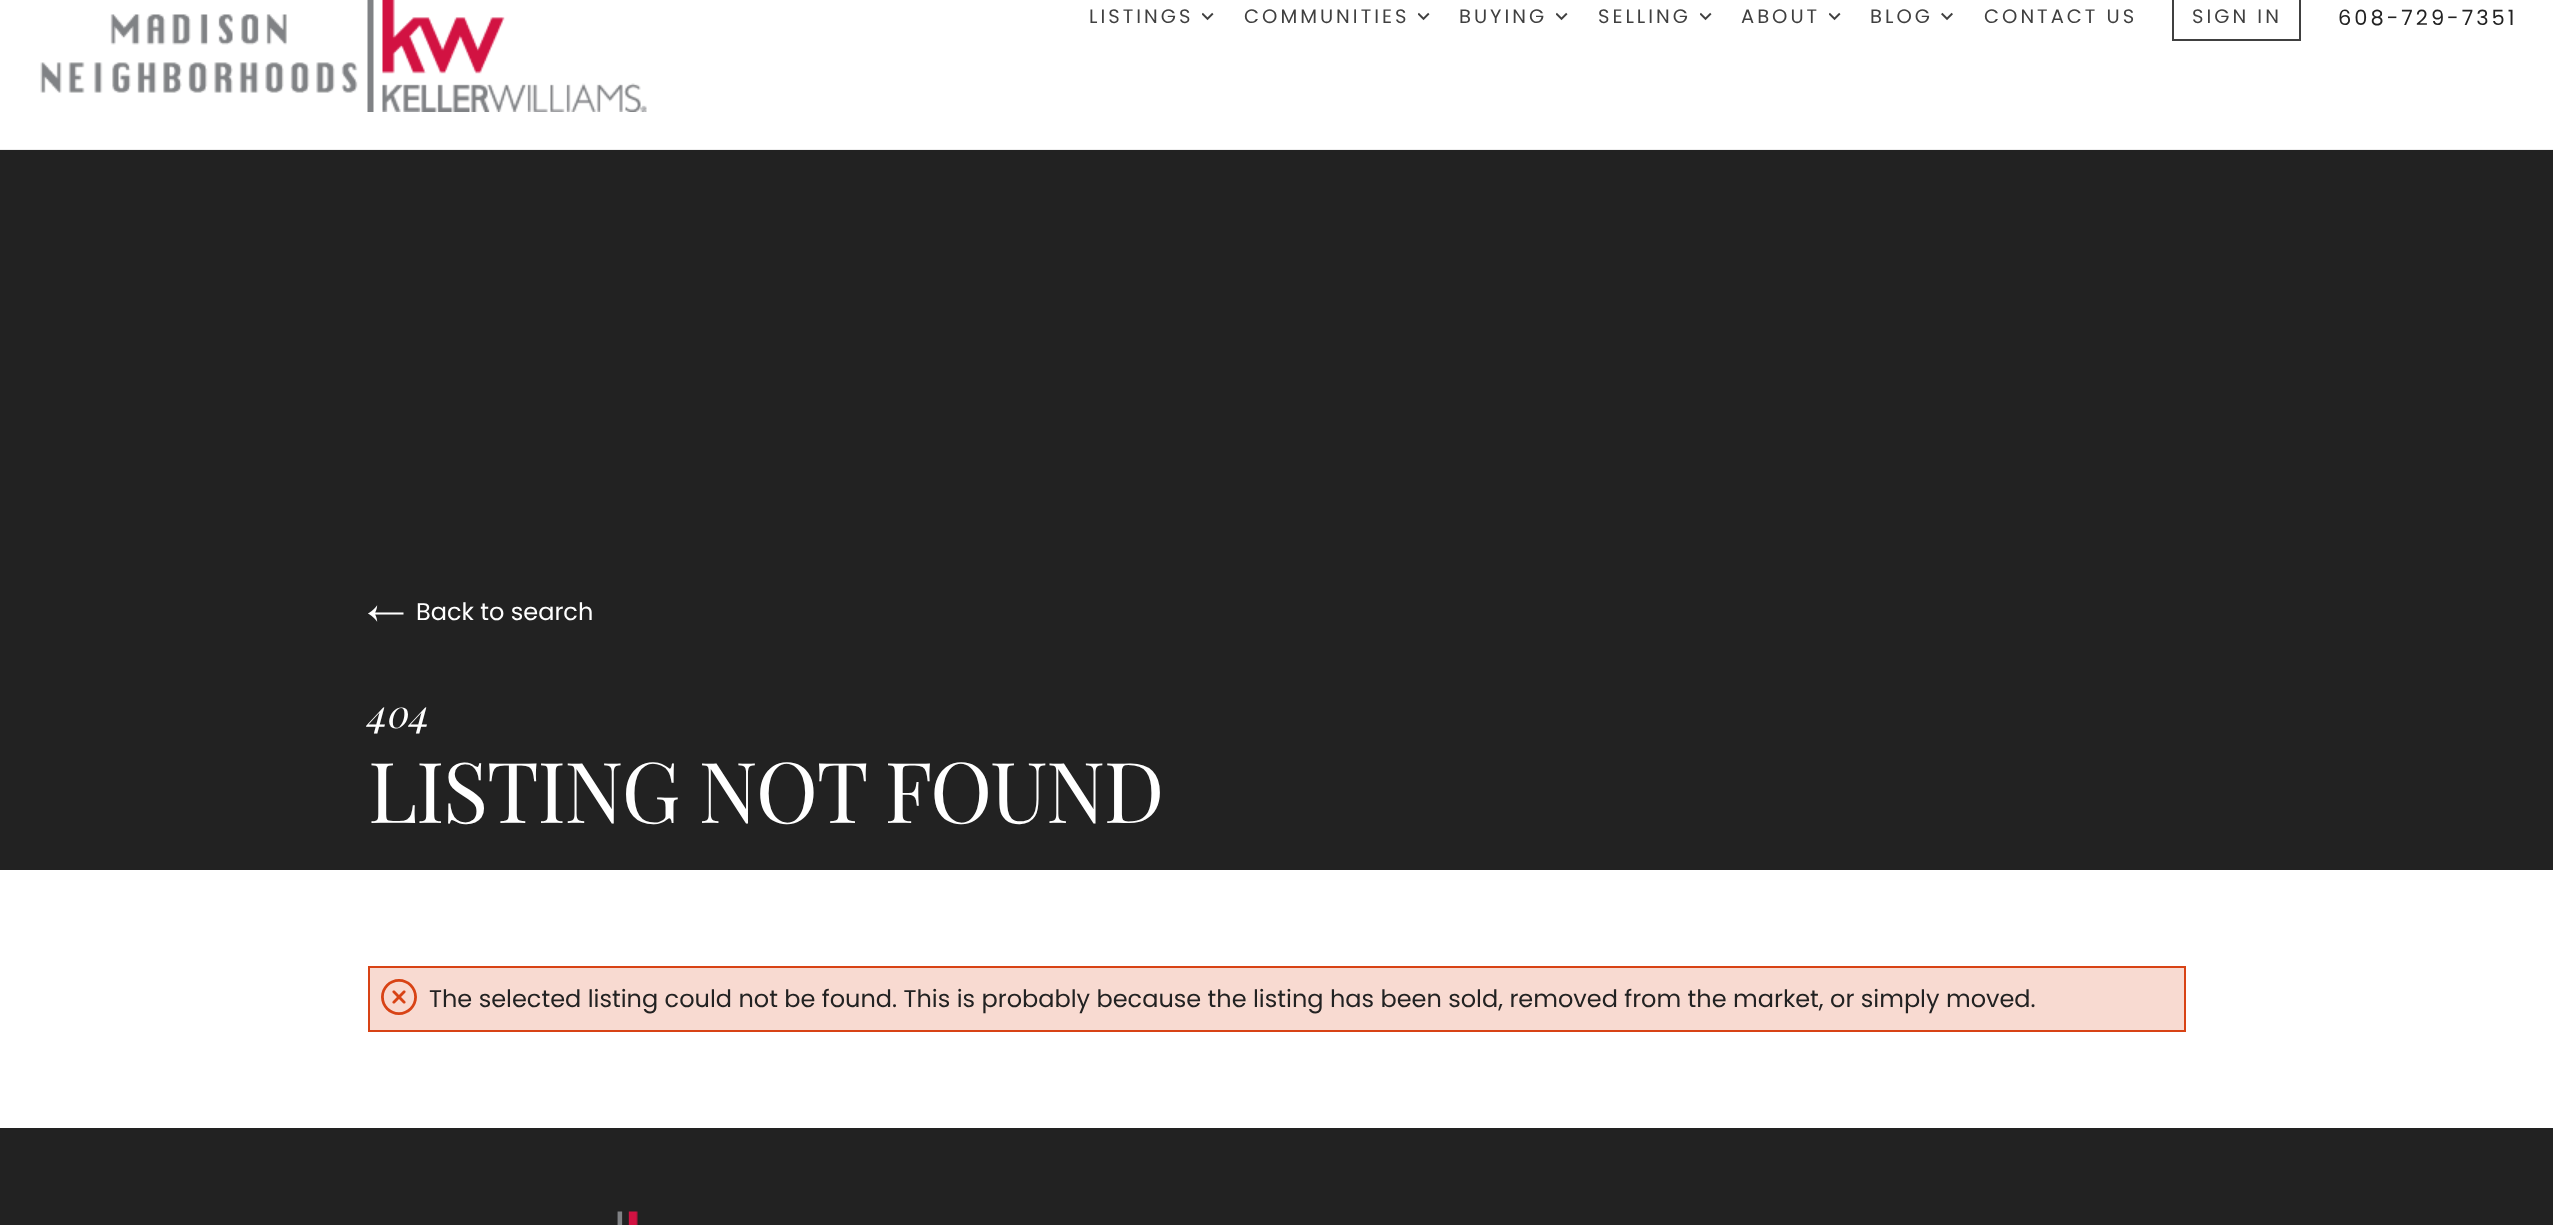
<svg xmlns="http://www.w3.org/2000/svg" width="2553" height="1225">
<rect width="100%" height="100%" fill="#fff"/>
<rect y="149" width="2553" height="1" fill="#eee"/>
<image x="40" y="0" width="607" height="112" href="media/1.png"/>
<text x="1089" y="23" style="font-family:Poppins;font-size:19.5px;letter-spacing:3px;fill:#404040">LISTINGS</text>
<image x="1202" y="12" width="12" height="9" href="media/2.png"/>
<text x="1244" y="23" style="font-family:Poppins;font-size:19.5px;letter-spacing:3px;fill:#404040">COMMUNITIES</text>
<image x="1418" y="12" width="12" height="9" href="media/2.png"/>
<text x="1459" y="23" style="font-family:Poppins;font-size:19.5px;letter-spacing:3px;fill:#404040">BUYING</text>
<image x="1556" y="12" width="12" height="9" href="media/2.png"/>
<text x="1598" y="23" style="font-family:Poppins;font-size:19.5px;letter-spacing:3px;fill:#404040">SELLING</text>
<image x="1700" y="12" width="12" height="9" href="media/2.png"/>
<text x="1741" y="23" style="font-family:Poppins;font-size:19.5px;letter-spacing:3px;fill:#404040">ABOUT</text>
<image x="1829" y="12" width="12" height="9" href="media/2.png"/>
<text x="1870" y="23" style="font-family:Poppins;font-size:19.5px;letter-spacing:3px;fill:#404040">BLOG</text>
<image x="1941" y="12" width="12" height="9" href="media/3.png"/>
<text x="1984" y="23" style="font-family:Poppins;font-size:19.5px;letter-spacing:3px;fill:#404040">CONTACT US</text>
<rect x="2173" y="-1" width="127" height="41" fill="none" stroke="#404040" stroke-width="2"/>
<text x="2192" y="23" style="font-family:Poppins;font-size:19.5px;letter-spacing:3px;fill:#404040">SIGN IN</text>
<text x="2338" y="25" style="font-family:Poppins;font-size:21px;letter-spacing:3px;fill:#222">608-729-7351</text>
<rect y="150" width="2553" height="720" fill="#222"/>
<image x="368" y="605" width="36" height="17" href="media/4.png"/>
<text x="416" y="620" style="font-family:Poppins;font-size:24px;fill:#fff">Back to search</text>
<text x="368" y="728" style="font-family:Playfair Display;font-size:39px;font-style:italic;fill:#fff">404</text>
<text x="368" y="823" style="font-family:Playfair Display;font-size:84px;letter-spacing:-1.5px;fill:#fff">LISTING NOT FOUND</text>
<rect x="369" y="967" width="1816" height="64" fill="#f8dad1" stroke="#d84315" stroke-width="2"/>
<image x="381" y="979" width="36" height="36" href="media/5.png"/>
<text x="429" y="1007" style="font-family:Poppins;font-size:24px;fill:#222">The selected listing could not be found. This is probably because the listing has been sold, removed from the market, or simply moved.</text>
<rect y="1128" width="2553" height="97" fill="#222"/>
<image x="617" y="1211" width="21" height="14" href="media/6.png"/>
</svg>
